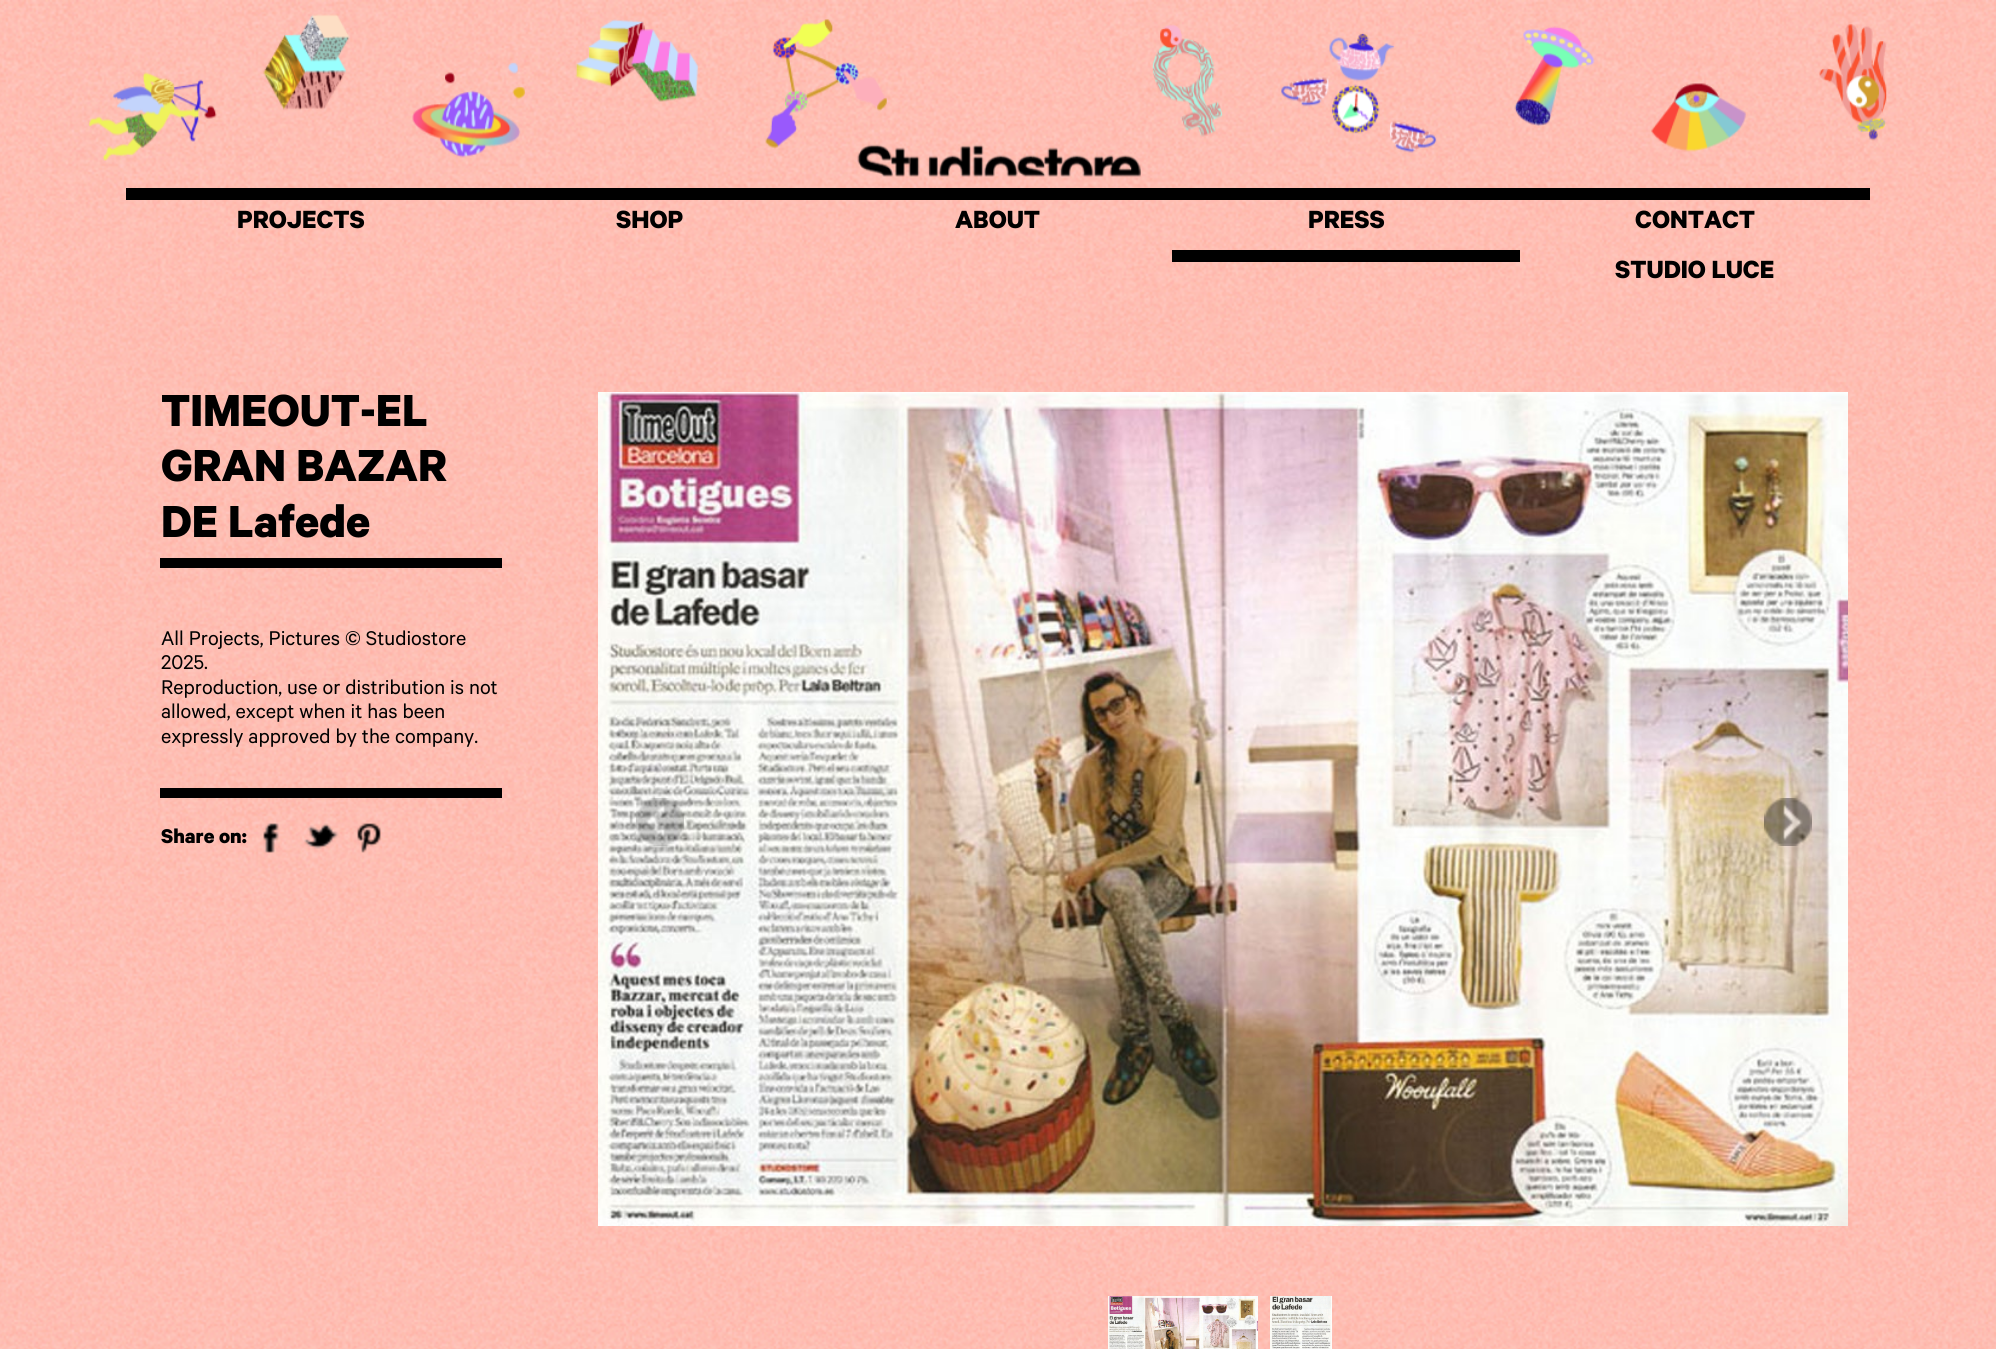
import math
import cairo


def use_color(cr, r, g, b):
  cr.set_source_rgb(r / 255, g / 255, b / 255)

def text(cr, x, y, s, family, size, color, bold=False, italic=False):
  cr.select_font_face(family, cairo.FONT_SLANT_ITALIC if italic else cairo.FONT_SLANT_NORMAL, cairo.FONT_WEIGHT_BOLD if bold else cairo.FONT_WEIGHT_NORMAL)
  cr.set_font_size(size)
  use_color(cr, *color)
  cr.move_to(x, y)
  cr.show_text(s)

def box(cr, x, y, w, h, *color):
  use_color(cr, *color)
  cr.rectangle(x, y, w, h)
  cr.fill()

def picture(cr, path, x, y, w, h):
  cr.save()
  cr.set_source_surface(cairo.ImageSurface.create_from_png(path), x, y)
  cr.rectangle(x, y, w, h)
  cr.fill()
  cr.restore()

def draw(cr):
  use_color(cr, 255, 255, 255)
  cr.paint()
  picture(cr, "img_01.png", 0, 300, 1996, 1049)
  picture(cr, "img_02.png", 0, 0, 1996, 300)
  picture(cr, "img_03.png", 88, 14, 1799, 147)
  picture(cr, "img_04.png", 857, 144, 284, 33)
  box(cr, 126, 188, 1744, 12, 0, 0, 0)
  box(cr, 1172, 250, 348, 12, 0, 0, 0)
  box(cr, 160, 558, 342, 10, 0, 0, 0)
  box(cr, 160, 788, 342, 10, 0, 0, 0)
  picture(cr, "img_05.png", 263, 823, 16, 30)
  picture(cr, "img_06.png", 304, 823, 35, 26)
  picture(cr, "img_07.png", 357, 823, 24, 30)
  picture(cr, "img_08.png", 598, 392, 1250, 834)
  picture(cr, "img_09.png", 636, 798, 48, 48)
  picture(cr, "img_10.png", 1764, 798, 48, 48)
  picture(cr, "img_11.png", 1108, 1296, 150, 53)
  picture(cr, "img_12.png", 1270, 1296, 62, 53)
  text(cr, 237, 228, "PROJECTS", "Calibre", 28, (0, 0, 0), bold=True)
  text(cr, 616, 228, "SHOP", "Calibre", 28, (0, 0, 0), bold=True)
  text(cr, 955, 228, "ABOUT", "Calibre", 28, (0, 0, 0), bold=True)
  text(cr, 1308, 228, "PRESS", "Calibre", 28, (0, 0, 0), bold=True)
  text(cr, 1635, 228, "CONTACT", "Calibre", 28, (0, 0, 0), bold=True)
  text(cr, 1615, 278, "STUDIO LUCE", "Calibre", 28, (0, 0, 0), bold=True)
  text(cr, 161, 426, "TIMEOUT-EL", "Calibre", 50.5, (0, 0, 0), bold=True)
  text(cr, 161, 481, "GRAN BAZAR", "Calibre", 50.5, (0, 0, 0), bold=True)
  text(cr, 161, 537, "DE Lafede", "Calibre", 50.5, (0, 0, 0), bold=True)
  text(cr, 161, 645, "All Projects, Pictures © Studiostore", "Calibre", 22.4, (0, 0, 0))
  text(cr, 161, 669, "2025.", "Calibre", 22.4, (0, 0, 0))
  text(cr, 161, 694, "Reproduction, use or distribution is not", "Calibre", 22.4, (0, 0, 0))
  text(cr, 161, 718, "allowed, except when it has been", "Calibre", 22.4, (0, 0, 0))
  text(cr, 161, 743, "expressly approved by the company.", "Calibre", 22.4, (0, 0, 0))
  text(cr, 161, 843, "Share on:", "Calibre", 22.4, (0, 0, 0), bold=True)


surface = cairo.ImageSurface(cairo.FORMAT_RGB24, 1996, 1349)
cr = cairo.Context(surface)
options = cairo.FontOptions()
options.set_hint_metrics(cairo.HINT_METRICS_OFF)
options.set_hint_style(cairo.HINT_STYLE_NONE)
cr.set_font_options(options)
cr.set_miter_limit(4)
draw(cr)
surface.write_to_png("out.png")
